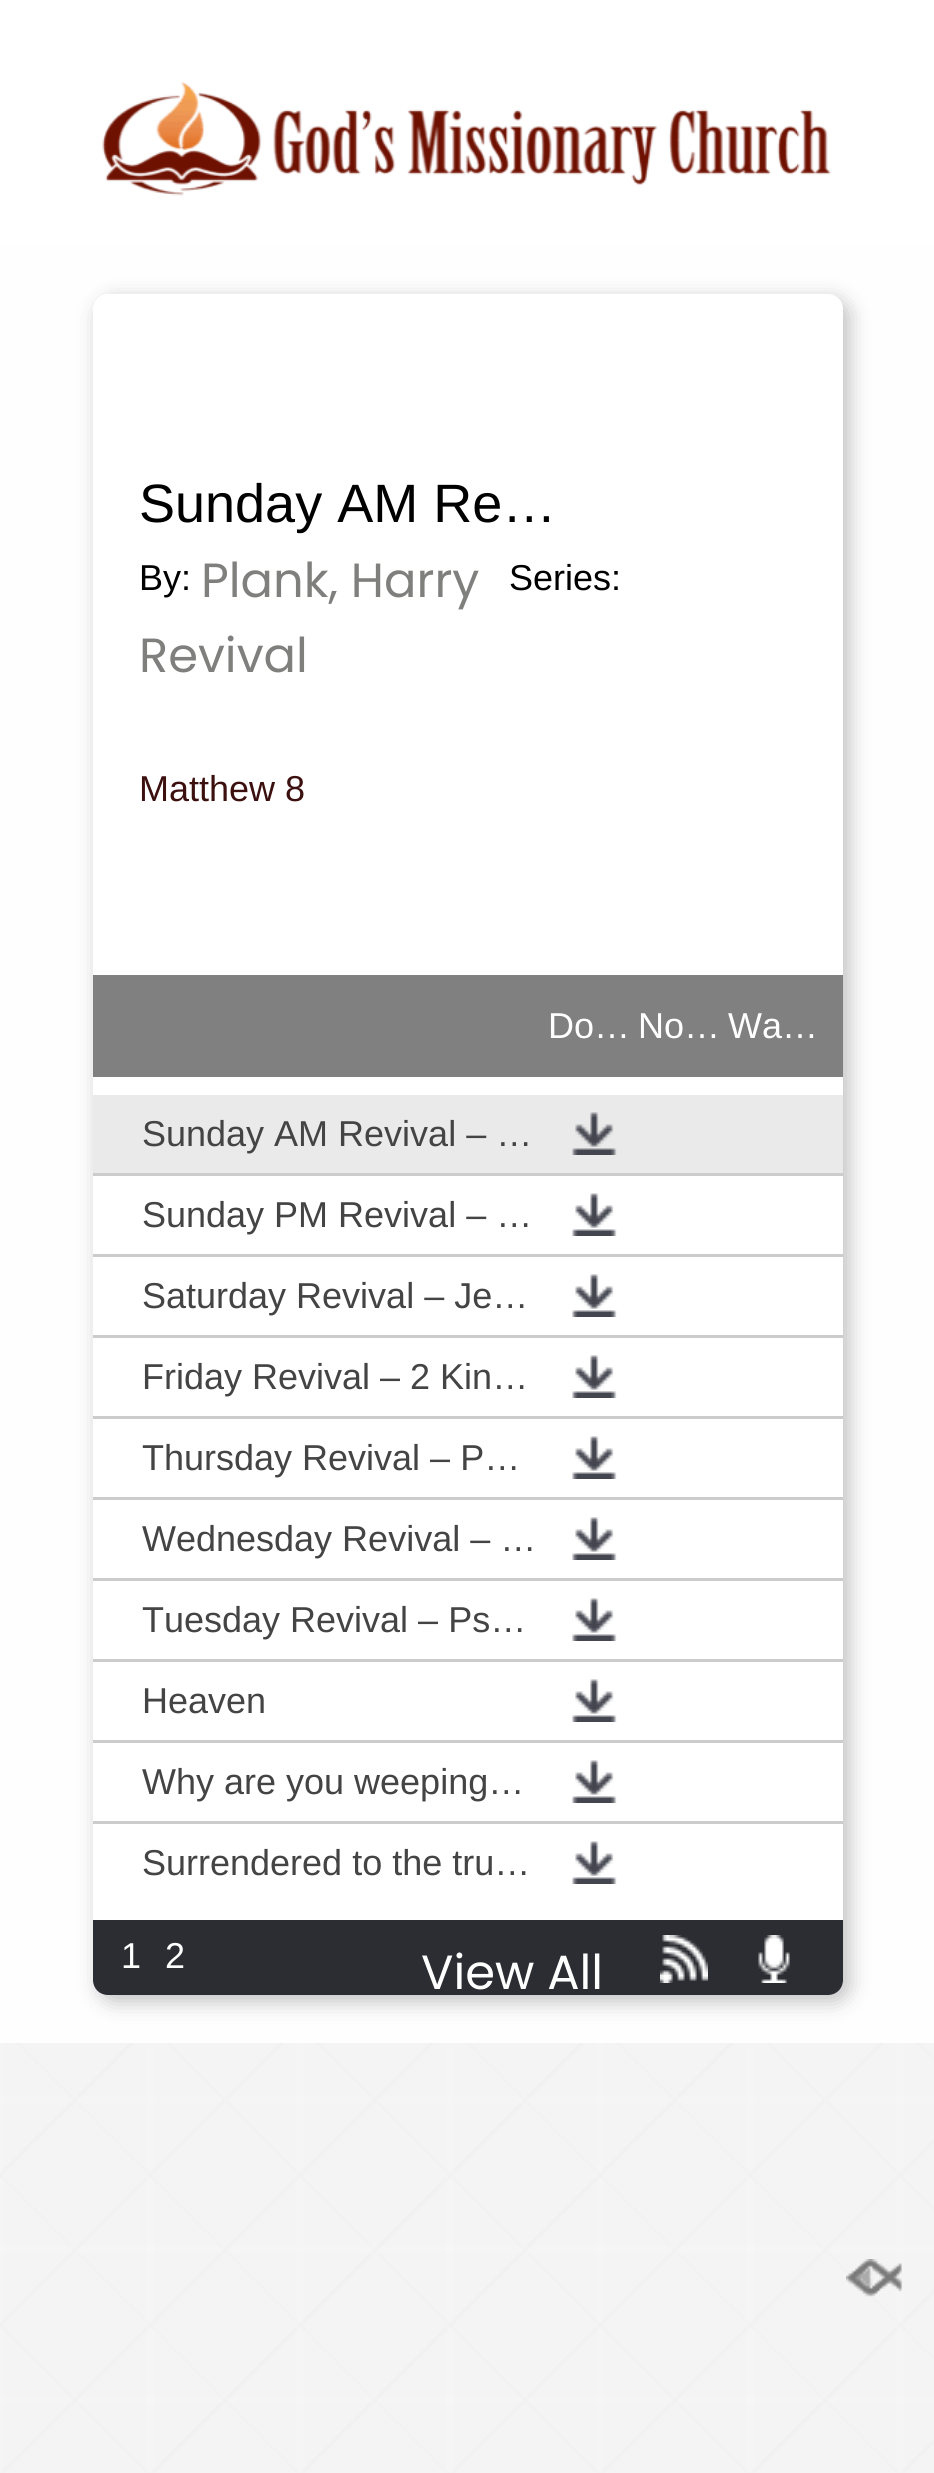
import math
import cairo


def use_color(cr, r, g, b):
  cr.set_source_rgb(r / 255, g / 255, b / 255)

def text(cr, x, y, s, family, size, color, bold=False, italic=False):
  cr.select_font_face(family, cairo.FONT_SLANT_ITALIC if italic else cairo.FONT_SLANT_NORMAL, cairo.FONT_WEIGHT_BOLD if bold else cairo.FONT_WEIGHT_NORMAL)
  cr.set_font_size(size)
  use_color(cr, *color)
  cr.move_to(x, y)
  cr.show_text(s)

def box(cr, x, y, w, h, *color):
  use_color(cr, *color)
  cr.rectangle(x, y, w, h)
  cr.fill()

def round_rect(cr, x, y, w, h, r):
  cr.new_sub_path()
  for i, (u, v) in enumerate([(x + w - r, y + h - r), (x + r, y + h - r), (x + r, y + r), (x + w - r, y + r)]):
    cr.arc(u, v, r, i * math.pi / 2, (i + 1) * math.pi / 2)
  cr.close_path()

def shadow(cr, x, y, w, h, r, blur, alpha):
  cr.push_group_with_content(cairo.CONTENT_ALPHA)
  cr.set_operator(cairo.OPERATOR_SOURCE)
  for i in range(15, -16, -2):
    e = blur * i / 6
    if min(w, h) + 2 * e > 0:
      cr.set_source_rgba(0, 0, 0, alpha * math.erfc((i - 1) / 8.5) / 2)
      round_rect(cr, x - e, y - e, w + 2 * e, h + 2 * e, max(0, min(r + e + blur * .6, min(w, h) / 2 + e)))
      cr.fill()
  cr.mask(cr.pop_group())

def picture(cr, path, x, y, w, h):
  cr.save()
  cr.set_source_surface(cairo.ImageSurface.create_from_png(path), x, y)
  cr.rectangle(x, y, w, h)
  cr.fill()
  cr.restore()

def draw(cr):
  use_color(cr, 255, 255, 255)
  cr.paint()
  picture(cr, "img_01.png", 0, 246, 934, 2227)
  picture(cr, "img_02.png", 102, 82, 729, 114)
  cr.set_source_rgba(1, 1, 1, 0.91)
  cr.rectangle(0, 246, 934, 1797)
  cr.fill()
  use_color(cr, 0, 0, 0)
  shadow(cr, 99, 300, 750, 1701, 15, 10.5, 0.25)
  use_color(cr, 255, 255, 255)
  round_rect(cr, 93, 294, 750, 1701, 15)
  cr.fill()
  box(cr, 93, 975, 750, 102, 128, 128, 128)
  box(cr, 93, 1095, 750, 78, 234, 234, 234)
  picture(cr, "img_03.png", 572, 1112, 45, 43)
  box(cr, 93, 1173, 750, 3, 204, 204, 204)
  picture(cr, "img_04.png", 572, 1193, 45, 43)
  box(cr, 93, 1254, 750, 3, 204, 204, 204)
  picture(cr, "img_04.png", 572, 1274, 45, 43)
  box(cr, 93, 1335, 750, 3, 204, 204, 204)
  picture(cr, "img_04.png", 572, 1355, 45, 43)
  box(cr, 93, 1416, 750, 3, 204, 204, 204)
  picture(cr, "img_04.png", 572, 1436, 45, 43)
  box(cr, 93, 1497, 750, 3, 204, 204, 204)
  picture(cr, "img_04.png", 572, 1517, 45, 43)
  box(cr, 93, 1578, 750, 3, 204, 204, 204)
  picture(cr, "img_04.png", 572, 1598, 45, 43)
  box(cr, 93, 1659, 750, 3, 204, 204, 204)
  picture(cr, "img_04.png", 572, 1679, 45, 43)
  box(cr, 93, 1740, 750, 3, 204, 204, 204)
  picture(cr, "img_04.png", 572, 1760, 45, 43)
  box(cr, 93, 1821, 750, 3, 204, 204, 204)
  picture(cr, "img_04.png", 572, 1841, 45, 43)
  use_color(cr, 44, 45, 51)
  cr.new_path()
  cr.move_to(93, 1920)
  cr.line_to(843, 1920)
  cr.line_to(843, 1980)
  cr.curve_to(843, 1988.5, 836.5, 1995, 828, 1995)
  cr.line_to(108, 1995)
  cr.curve_to(99.5, 1995, 93, 1988.5, 93, 1980)
  cr.close_path()
  cr.fill()
  picture(cr, "img_05.png", 660, 1935, 48, 48)
  picture(cr, "img_06.png", 758, 1935, 32, 48)
  picture(cr, "img_07.png", 846, 2259, 57, 38)
  text(cr, 139, 522, "Sunday AM Re…", "Liberation Sans", 54, (0, 0, 0))
  text(cr, 139, 590, "By:", "Liberation Sans", 36, (0, 0, 0))
  text(cr, 201, 597, "Plank, Harry", "Poppins", 48, (127, 128, 125))
  text(cr, 509, 590, "Series:", "Liberation Sans", 36, (0, 0, 0))
  text(cr, 139, 672, "Revival", "Poppins", 48, (127, 128, 125))
  text(cr, 139, 801, "Matthew 8", "Liberation Sans", 36, (59, 16, 15))
  text(cr, 548, 1038, "Do…", "Liberation Sans", 36, (255, 255, 255))
  text(cr, 638, 1038, "No…", "Liberation Sans", 36, (255, 255, 255))
  text(cr, 728, 1038, "Wa…", "Liberation Sans", 36, (255, 255, 255))
  text(cr, 142, 1146, "Sunday AM Revival – …", "Liberation Sans", 36, (68, 68, 68))
  text(cr, 142, 1227, "Sunday PM Revival – …", "Liberation Sans", 36, (68, 68, 68))
  text(cr, 142, 1308, "Saturday Revival – Je…", "Liberation Sans", 36, (68, 68, 68))
  text(cr, 142, 1389, "Friday Revival – 2 Kin…", "Liberation Sans", 36, (68, 68, 68))
  text(cr, 142, 1470, "Thursday Revival – P…", "Liberation Sans", 36, (68, 68, 68))
  text(cr, 142, 1551, "Wednesday Revival – …", "Liberation Sans", 36, (68, 68, 68))
  text(cr, 142, 1632, "Tuesday Revival – Ps…", "Liberation Sans", 36, (68, 68, 68))
  text(cr, 142, 1713, "Heaven", "Liberation Sans", 36, (68, 68, 68))
  text(cr, 142, 1794, "Why are you weeping…", "Liberation Sans", 36, (68, 68, 68))
  text(cr, 142, 1875, "Surrendered to the tru…", "Liberation Sans", 36, (68, 68, 68))
  text(cr, 121, 1968, "1", "Liberation Sans", 36, (255, 255, 255))
  text(cr, 165, 1968, "2", "Liberation Sans", 36, (255, 255, 255))
  text(cr, 421, 1989, "View All", "Poppins", 48, (255, 255, 255))


surface = cairo.ImageSurface(cairo.FORMAT_RGB24, 934, 2473)
cr = cairo.Context(surface)
options = cairo.FontOptions()
options.set_hint_metrics(cairo.HINT_METRICS_OFF)
options.set_hint_style(cairo.HINT_STYLE_NONE)
cr.set_font_options(options)
cr.set_miter_limit(4)
draw(cr)
surface.write_to_png("out.png")
